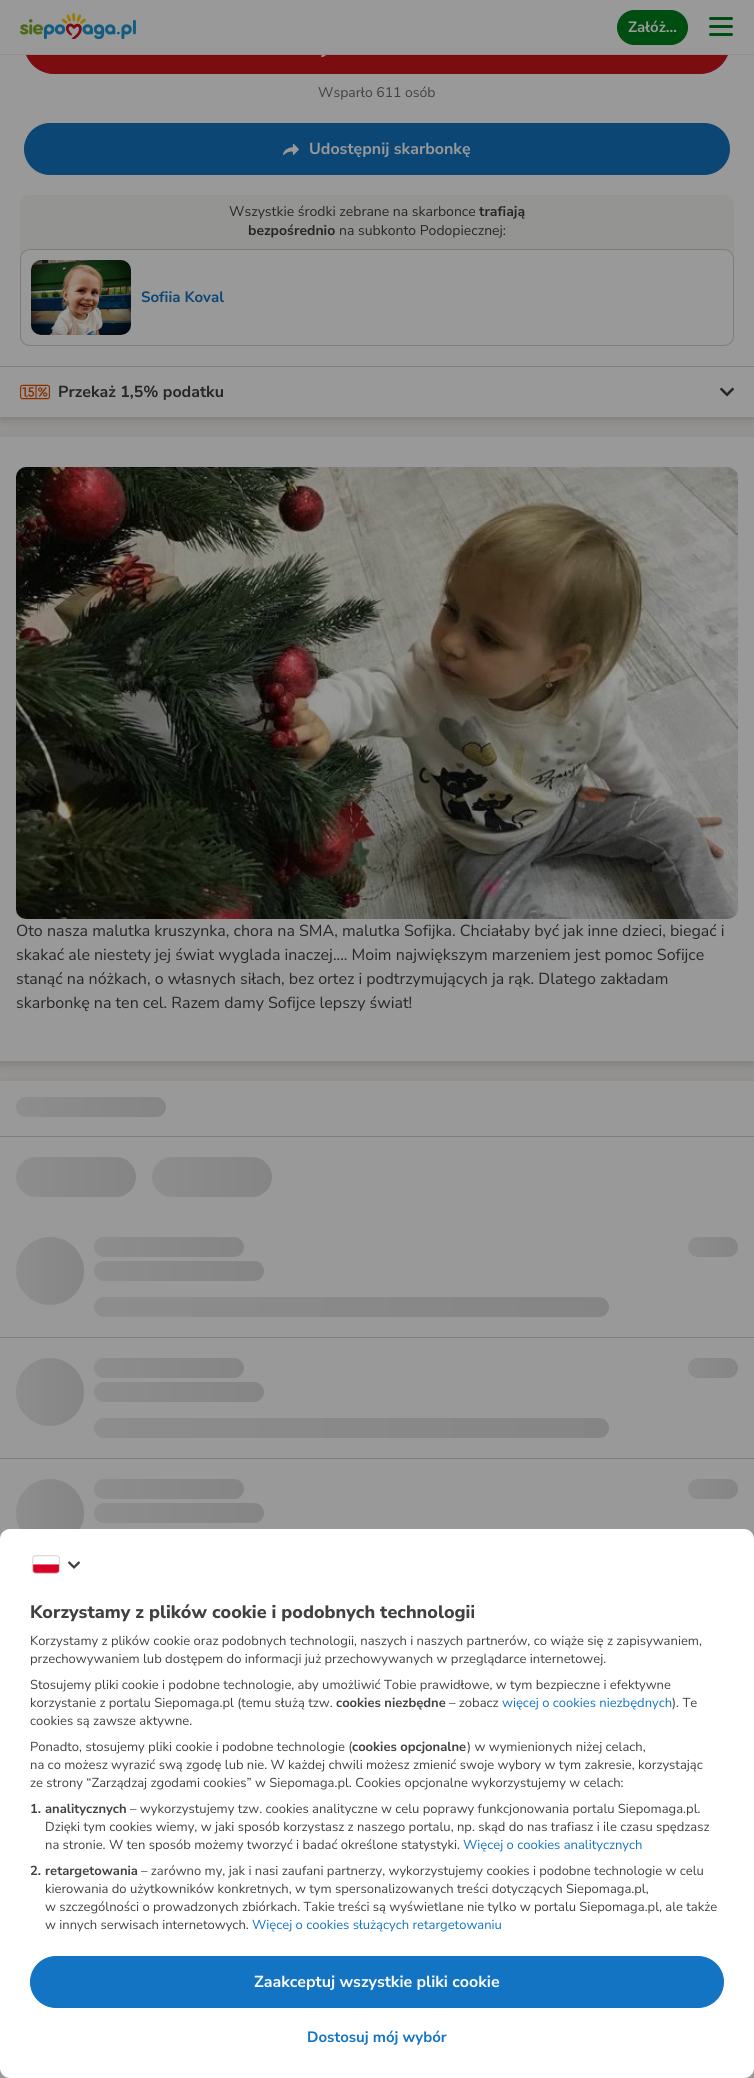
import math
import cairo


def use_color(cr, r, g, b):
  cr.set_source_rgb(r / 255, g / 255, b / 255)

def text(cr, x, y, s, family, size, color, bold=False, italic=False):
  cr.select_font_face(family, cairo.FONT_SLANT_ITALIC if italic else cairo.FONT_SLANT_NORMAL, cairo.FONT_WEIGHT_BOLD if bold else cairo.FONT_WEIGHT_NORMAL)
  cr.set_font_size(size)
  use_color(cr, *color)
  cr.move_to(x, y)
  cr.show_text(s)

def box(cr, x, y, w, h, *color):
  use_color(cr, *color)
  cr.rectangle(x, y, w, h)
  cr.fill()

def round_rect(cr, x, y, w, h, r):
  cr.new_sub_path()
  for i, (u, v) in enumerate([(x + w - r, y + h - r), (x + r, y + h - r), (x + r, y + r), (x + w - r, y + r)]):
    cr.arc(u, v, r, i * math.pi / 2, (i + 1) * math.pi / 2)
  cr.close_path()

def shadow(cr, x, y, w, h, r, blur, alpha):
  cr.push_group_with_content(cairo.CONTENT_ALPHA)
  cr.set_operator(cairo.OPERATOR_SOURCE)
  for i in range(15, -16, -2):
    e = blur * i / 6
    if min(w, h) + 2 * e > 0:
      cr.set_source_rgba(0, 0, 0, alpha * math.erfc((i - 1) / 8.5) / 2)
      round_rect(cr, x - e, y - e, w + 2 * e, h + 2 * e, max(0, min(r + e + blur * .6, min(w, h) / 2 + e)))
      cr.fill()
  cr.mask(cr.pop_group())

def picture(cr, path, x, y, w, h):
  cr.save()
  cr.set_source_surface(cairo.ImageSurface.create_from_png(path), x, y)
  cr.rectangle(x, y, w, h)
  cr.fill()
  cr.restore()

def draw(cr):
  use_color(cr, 151, 150, 149)
  cr.paint()
  use_color(cr, 38, 38, 38)
  shadow(cr, 0, -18, 754, 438, 0, 6, 0.26)
  box(cr, 0, 55, 754, 311, 153, 153, 153)
  use_color(cr, 123, 12, 16)
  round_rect(cr, 24.5, 14.5, 705, 59, 29.5)
  cr.fill_preserve()
  cr.set_line_width(1)
  cr.stroke()
  box(cr, 0, 0, 754, 54, 153, 153, 153)
  box(cr, 0, 54, 754, 1, 141, 141, 141)
  picture(cr, "img_01.png", 20, 13, 116, 26)
  use_color(cr, 0, 77, 17)
  round_rect(cr, 617.5, 10.5, 70, 34, 17)
  cr.fill_preserve()
  cr.stroke()
  picture(cr, "img_02.png", 709, 17, 24, 19)
  picture(cr, "img_03.png", 321, 55, 5, 2)
  use_color(cr, 11, 70, 117)
  round_rect(cr, 24.5, 123.5, 705, 51, 25.5)
  cr.fill_preserve()
  cr.stroke()
  picture(cr, "img_04.png", 283, 144, 16, 11)
  use_color(cr, 148, 148, 146)
  round_rect(cr, 20, 195, 714, 151, 10)
  cr.fill()
  use_color(cr, 153, 153, 153)
  round_rect(cr, 20.5, 249.5, 713, 96, 9.5)
  cr.fill_preserve()
  use_color(cr, 125, 125, 125)
  cr.stroke()
  picture(cr, "img_05.png", 31, 260, 100, 75)
  box(cr, 0, 366, 754, 1, 125, 125, 125)
  box(cr, 0, 367, 754, 50, 153, 153, 153)
  picture(cr, "img_06.png", 20, 384, 30, 16)
  picture(cr, "img_07.png", 720, 387, 14, 10)
  use_color(cr, 38, 38, 38)
  shadow(cr, 0, 1084, 754, 983, 0, 6, 0.26)
  box(cr, 0, 2068, 754, 10, 153, 153, 153)
  use_color(cr, 38, 38, 38)
  shadow(cr, 0, 440, 754, 624, 0, 6, 0.26)
  box(cr, 0, 437, 754, 624, 153, 153, 153)
  picture(cr, "img_08.png", 16, 467, 722, 452)
  box(cr, 0, 1081, 754, 458, 153, 153, 153)
  box(cr, 0, 1136, 754, 1, 125, 125, 125)
  gradient = cairo.LinearGradient(16, 1107, 166, 1107)
  gradient.add_color_stop_rgba(0, 0.553, 0.553, 0.553, 1)
  gradient.add_color_stop_rgba(1, 0.522, 0.522, 0.522, 1)
  cr.set_source(gradient)
  round_rect(cr, 16, 1097, 150, 20, 10)
  cr.fill()
  gradient = cairo.LinearGradient(16, 1177, 136, 1177)
  gradient.add_color_stop_rgba(0, 0.553, 0.553, 0.553, 1)
  gradient.add_color_stop_rgba(1, 0.522, 0.522, 0.522, 1)
  cr.set_source(gradient)
  round_rect(cr, 16, 1157, 120, 40, 20)
  cr.fill()
  gradient = cairo.LinearGradient(152, 1177, 272, 1177)
  gradient.add_color_stop_rgba(0, 0.553, 0.553, 0.553, 1)
  gradient.add_color_stop_rgba(1, 0.522, 0.522, 0.522, 1)
  cr.set_source(gradient)
  round_rect(cr, 152, 1157, 120, 40, 20)
  cr.fill()
  box(cr, 0, 1337, 754, 1, 125, 125, 125)
  gradient = cairo.LinearGradient(16, 1271, 84, 1271)
  gradient.add_color_stop_rgba(0, 0.553, 0.553, 0.553, 1)
  gradient.add_color_stop_rgba(1, 0.522, 0.522, 0.522, 1)
  cr.set_source(gradient)
  cr.arc(50, 1271, 34, 0, 2 * math.pi)
  cr.fill()
  gradient = cairo.LinearGradient(94, 1247, 244, 1247)
  gradient.add_color_stop_rgba(0, 0.553, 0.553, 0.553, 1)
  gradient.add_color_stop_rgba(1, 0.522, 0.522, 0.522, 1)
  cr.set_source(gradient)
  round_rect(cr, 94, 1237, 150, 20, 10)
  cr.fill()
  gradient = cairo.LinearGradient(688, 1247, 738, 1247)
  gradient.add_color_stop_rgba(0, 0.553, 0.553, 0.553, 1)
  gradient.add_color_stop_rgba(1, 0.522, 0.522, 0.522, 1)
  cr.set_source(gradient)
  round_rect(cr, 688, 1237, 50, 20, 10)
  cr.fill()
  gradient = cairo.LinearGradient(94, 1271, 264, 1271)
  gradient.add_color_stop_rgba(0, 0.553, 0.553, 0.553, 1)
  gradient.add_color_stop_rgba(1, 0.522, 0.522, 0.522, 1)
  cr.set_source(gradient)
  round_rect(cr, 94, 1261, 170, 20, 10)
  cr.fill()
  gradient = cairo.LinearGradient(94, 1307, 609, 1307)
  gradient.add_color_stop_rgba(0, 0.553, 0.553, 0.553, 1)
  gradient.add_color_stop_rgba(1, 0.522, 0.522, 0.522, 1)
  cr.set_source(gradient)
  round_rect(cr, 94, 1297, 515, 20, 10)
  cr.fill()
  box(cr, 0, 1458, 754, 1, 125, 125, 125)
  gradient = cairo.LinearGradient(16, 1392, 84, 1392)
  gradient.add_color_stop_rgba(0, 0.553, 0.553, 0.553, 1)
  gradient.add_color_stop_rgba(1, 0.522, 0.522, 0.522, 1)
  cr.set_source(gradient)
  cr.arc(50, 1392, 34, 0, 2 * math.pi)
  cr.fill()
  gradient = cairo.LinearGradient(94, 1368, 244, 1368)
  gradient.add_color_stop_rgba(0, 0.553, 0.553, 0.553, 1)
  gradient.add_color_stop_rgba(1, 0.522, 0.522, 0.522, 1)
  cr.set_source(gradient)
  round_rect(cr, 94, 1358, 150, 20, 10)
  cr.fill()
  gradient = cairo.LinearGradient(688, 1368, 738, 1368)
  gradient.add_color_stop_rgba(0, 0.553, 0.553, 0.553, 1)
  gradient.add_color_stop_rgba(1, 0.522, 0.522, 0.522, 1)
  cr.set_source(gradient)
  round_rect(cr, 688, 1358, 50, 20, 10)
  cr.fill()
  gradient = cairo.LinearGradient(94, 1392, 264, 1392)
  gradient.add_color_stop_rgba(0, 0.553, 0.553, 0.553, 1)
  gradient.add_color_stop_rgba(1, 0.522, 0.522, 0.522, 1)
  cr.set_source(gradient)
  round_rect(cr, 94, 1382, 170, 20, 10)
  cr.fill()
  gradient = cairo.LinearGradient(94, 1428, 609, 1428)
  gradient.add_color_stop_rgba(0, 0.553, 0.553, 0.553, 1)
  gradient.add_color_stop_rgba(1, 0.522, 0.522, 0.522, 1)
  cr.set_source(gradient)
  round_rect(cr, 94, 1418, 515, 20, 10)
  cr.fill()
  gradient = cairo.LinearGradient(16, 1513, 84, 1513)
  gradient.add_color_stop_rgba(0, 0.553, 0.553, 0.553, 1)
  gradient.add_color_stop_rgba(1, 0.522, 0.522, 0.522, 1)
  cr.set_source(gradient)
  cr.arc(50, 1513, 34, 0, 2 * math.pi)
  cr.fill()
  gradient = cairo.LinearGradient(94, 1489, 244, 1489)
  gradient.add_color_stop_rgba(0, 0.553, 0.553, 0.553, 1)
  gradient.add_color_stop_rgba(1, 0.522, 0.522, 0.522, 1)
  cr.set_source(gradient)
  round_rect(cr, 94, 1479, 150, 20, 10)
  cr.fill()
  gradient = cairo.LinearGradient(688, 1489, 738, 1489)
  gradient.add_color_stop_rgba(0, 0.553, 0.553, 0.553, 1)
  gradient.add_color_stop_rgba(1, 0.522, 0.522, 0.522, 1)
  cr.set_source(gradient)
  round_rect(cr, 688, 1479, 50, 20, 10)
  cr.fill()
  gradient = cairo.LinearGradient(94, 1513, 264, 1513)
  gradient.add_color_stop_rgba(0, 0.553, 0.553, 0.553, 1)
  gradient.add_color_stop_rgba(1, 0.522, 0.522, 0.522, 1)
  cr.set_source(gradient)
  round_rect(cr, 94, 1503, 170, 20, 10)
  cr.fill()
  use_color(cr, 255, 255, 255)
  round_rect(cr, 0, 1529, 754, 549, 10)
  cr.fill()
  picture(cr, "img_09.png", 32, 1555, 28, 19)
  picture(cr, "img_10.png", 68, 1561, 12, 8)
  use_color(cr, 18, 116, 195)
  round_rect(cr, 30.5, 1956.5, 693, 51, 25.5)
  cr.fill_preserve()
  cr.stroke()
  text(cr, 628, 32, "Załóż…", "Nunito Sans", 15, (153, 153, 153), bold=True)
  text(cr, 318, 97, "Wsparło 611 osób", "Nunito Sans", 14, (65, 65, 65))
  text(cr, 309, 154, "Udostępnij skarbonkę", "Nunito Sans", 16, (153, 153, 153), bold=True)
  text(cr, 229, 216, "Wszystkie środki zebrane na skarbonce", "Nunito Sans", 14, (38, 38, 38))
  text(cr, 479, 216, "trafiają", "Nunito Sans", 14, (38, 38, 38), bold=True)
  text(cr, 248, 235, "bezpośrednio", "Nunito Sans", 14, (38, 38, 38), bold=True)
  text(cr, 339, 235, "na subkonto Podopiecznej:", "Nunito Sans", 14, (38, 38, 38))
  text(cr, 141, 302, "Sofiia Koval", "Nunito Sans", 15, (11, 70, 117), bold=True)
  text(cr, 58, 397, "Przekaż 1,5% podatku", "Nunito Sans", 16, (38, 38, 38), bold=True)
  text(cr, 16, 936, "Oto nasza malutka kruszynka, chora na SMA, malutka Sofijka. Chciałaby być jak inne dzieci, biegać i", "Nunito Sans", 16, (38, 38, 38))
  text(cr, 16, 960, "skakać ale niestety jej świat wyglada inaczej.... Moim największym marzeniem jest pomoc Sofijce", "Nunito Sans", 16, (38, 38, 38))
  text(cr, 16, 984, "stanąć na nóżkach, o własnych siłach, bez ortez i podtrzymujących ja rąk. Dlatego zakładam", "Nunito Sans", 16, (38, 38, 38))
  text(cr, 16, 1008, "skarbonkę na ten cel. Razem damy Sofijce lepszy świat!", "Nunito Sans", 16, (38, 38, 38))
  text(cr, 30, 1618, "Korzystamy z plików cookie i podobnych technologii", "Nunito Sans ExtraBold", 18, (65, 65, 65))
  text(cr, 30, 1645, "Korzystamy z plików cookie oraz podobnych technologii, naszych i naszych partnerów, co wiąże się z zapisywaniem,", "Nunito Sans", 13, (65, 65, 65))
  text(cr, 30, 1663, "przechowywaniem lub dostępem do informacji już przechowywanych w przeglądarce internetowej.", "Nunito Sans", 13, (65, 65, 65))
  text(cr, 30, 1689, "Stosujemy pliki cookie i podobne technologie, aby umożliwić Tobie prawidłowe, w tym bezpieczne i efektywne", "Nunito Sans", 13, (65, 65, 65))
  text(cr, 30, 1707, "korzystanie z portalu Siepomaga.pl (temu służą tzw.", "Nunito Sans", 13, (65, 65, 65))
  text(cr, 336, 1707, "cookies niezbędne", "Nunito Sans", 13, (65, 65, 65), bold=True)
  text(cr, 449, 1707, "– zobacz", "Nunito Sans", 13, (65, 65, 65))
  text(cr, 502, 1707, "więcej o cookies niezbędnych", "Nunito Sans", 13, (18, 116, 195))
  text(cr, 672, 1707, "). Te", "Nunito Sans", 13, (65, 65, 65))
  text(cr, 30, 1725, "cookies są zawsze aktywne.", "Nunito Sans", 13, (65, 65, 65))
  text(cr, 30, 1751, "Ponadto, stosujemy pliki cookie i podobne technologie (", "Nunito Sans", 13, (65, 65, 65))
  text(cr, 352, 1751, "cookies opcjonalne", "Nunito Sans", 13, (65, 65, 65), bold=True)
  text(cr, 467, 1751, ") w wymienionych niżej celach,", "Nunito Sans", 13, (65, 65, 65))
  text(cr, 30, 1769, "na co możesz wyrazić swą zgodę lub nie. W każdej chwili możesz zmienić swoje wybory w tym zakresie, korzystając", "Nunito Sans", 13, (65, 65, 65))
  text(cr, 30, 1787, "ze strony “Zarządzaj zgodami cookies” w Siepomaga.pl. Cookies opcjonalne wykorzystujemy w celach:", "Nunito Sans", 13, (65, 65, 65))
  text(cr, 30, 1813, "1.", "Nunito Sans", 13, (65, 65, 65), bold=True)
  text(cr, 45, 1813, "analitycznych", "Nunito Sans", 13, (65, 65, 65), bold=True)
  text(cr, 130, 1813, "– wykorzystujemy tzw. cookies analityczne w celu poprawy funkcjonowania portalu Siepomaga.pl.", "Nunito Sans", 13, (65, 65, 65))
  text(cr, 45, 1831, "Dzięki tym cookies wiemy, w jaki sposób korzystasz z naszego portalu, np. skąd do nas trafiasz i ile czasu spędzasz", "Nunito Sans", 13, (65, 65, 65))
  text(cr, 45, 1849, "na stronie. W ten sposób możemy tworzyć i badać określone statystyki.", "Nunito Sans", 13, (65, 65, 65))
  text(cr, 463, 1849, "Więcej o cookies analitycznych", "Nunito Sans", 13, (18, 116, 195))
  text(cr, 30, 1875, "2.", "Nunito Sans", 13, (65, 65, 65), bold=True)
  text(cr, 45, 1875, "retargetowania", "Nunito Sans", 13, (65, 65, 65), bold=True)
  text(cr, 141, 1875, "– zarówno my, jak i nasi zaufani partnerzy, wykorzystujemy cookies i podobne technologie w celu", "Nunito Sans", 13, (65, 65, 65))
  text(cr, 45, 1893, "kierowania do użytkowników konkretnych, w tym spersonalizowanych treści dotyczących Siepomaga.pl,", "Nunito Sans", 13, (65, 65, 65))
  text(cr, 45, 1911, "w szczególności o prowadzonych zbiórkach. Takie treści są wyświetlane nie tylko w portalu Siepomaga.pl, ale także", "Nunito Sans", 13, (65, 65, 65))
  text(cr, 45, 1929, "w innych serwisach internetowych.", "Nunito Sans", 13, (65, 65, 65))
  text(cr, 252, 1929, "Więcej o cookies służących retargetowaniu", "Nunito Sans", 13, (18, 116, 195))
  text(cr, 254, 1987, "Zaakceptuj wszystkie pliki cookie", "Nunito Sans", 16, (255, 255, 255), bold=True)
  text(cr, 307, 2042, "Dostosuj mój wybór", "Nunito Sans", 15, (18, 116, 195), bold=True)


surface = cairo.ImageSurface(cairo.FORMAT_RGB24, 754, 2078)
cr = cairo.Context(surface)
options = cairo.FontOptions()
options.set_hint_metrics(cairo.HINT_METRICS_OFF)
options.set_hint_style(cairo.HINT_STYLE_NONE)
cr.set_font_options(options)
cr.set_miter_limit(4)
draw(cr)
surface.write_to_png("out.png")
